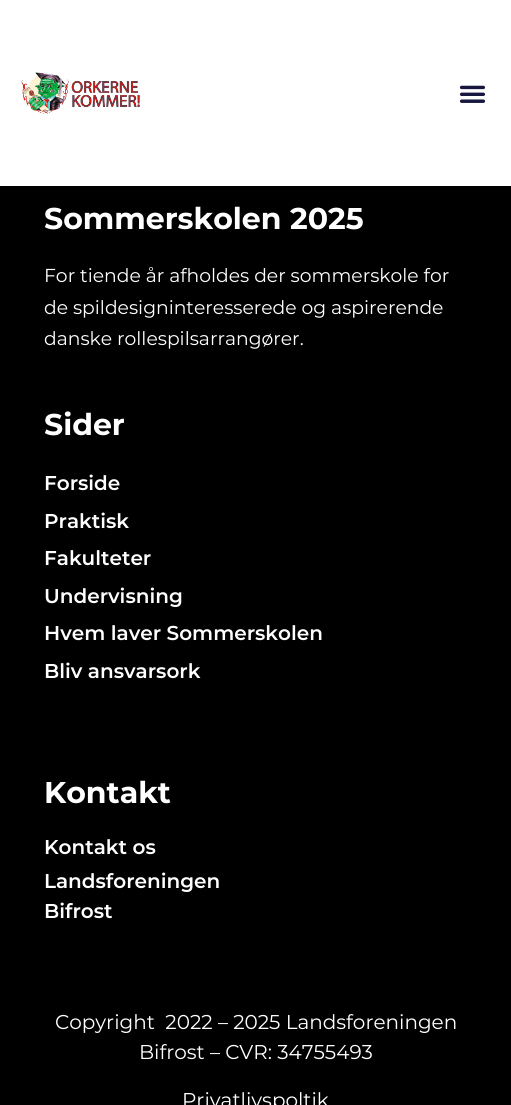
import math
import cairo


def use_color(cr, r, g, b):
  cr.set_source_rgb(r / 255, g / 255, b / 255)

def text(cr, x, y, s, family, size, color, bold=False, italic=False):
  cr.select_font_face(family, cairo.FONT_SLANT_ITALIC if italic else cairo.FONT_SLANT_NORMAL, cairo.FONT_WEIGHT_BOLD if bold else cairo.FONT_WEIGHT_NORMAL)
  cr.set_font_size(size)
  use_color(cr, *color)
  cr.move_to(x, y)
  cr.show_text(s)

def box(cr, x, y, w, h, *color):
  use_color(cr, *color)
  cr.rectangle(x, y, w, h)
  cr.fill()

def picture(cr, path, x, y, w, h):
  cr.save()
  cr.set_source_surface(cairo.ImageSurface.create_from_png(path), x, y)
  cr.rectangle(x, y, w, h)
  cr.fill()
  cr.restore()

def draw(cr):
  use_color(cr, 0, 0, 0)
  cr.paint()
  box(cr, 0, 0, 511, 186, 255, 255, 255)
  picture(cr, "img_01.png", 21, 72, 119, 42)
  picture(cr, "img_02.png", 459, 85, 27, 18)
  text(cr, 44, 229, "Sommerskolen 2025", "Montserrat", 30, (255, 255, 255), bold=True)
  text(cr, 44, 282, "For tiende år afholdes der sommerskole for", "Montserrat", 18.75, (255, 255, 255))
  text(cr, 44, 314, "de spildesigninteresserede og aspirerende", "Montserrat", 18.75, (255, 255, 255))
  text(cr, 44, 345, "danske rollespilsarrangører.", "Montserrat", 18.75, (255, 255, 255))
  text(cr, 44, 435, "Sider", "Montserrat", 30, (255, 255, 255), bold=True)
  text(cr, 44, 490, "Forside", "Montserrat SemiBold", 20, (255, 255, 255))
  text(cr, 44, 528, "Praktisk", "Montserrat SemiBold", 20, (255, 255, 255))
  text(cr, 44, 565, "Fakulteter", "Montserrat SemiBold", 20, (255, 255, 255))
  text(cr, 44, 603, "Undervisning", "Montserrat SemiBold", 20, (255, 255, 255))
  text(cr, 44, 640, "Hvem laver Sommerskolen", "Montserrat SemiBold", 20, (255, 255, 255))
  text(cr, 44, 678, "Bliv ansvarsork", "Montserrat SemiBold", 20, (255, 255, 255))
  text(cr, 44, 803, "Kontakt", "Montserrat", 30, (255, 255, 255), bold=True)
  text(cr, 44, 854, "Kontakt os", "Montserrat SemiBold", 20, (255, 255, 255))
  text(cr, 44, 888, "Landsforeningen", "Montserrat SemiBold", 20, (255, 255, 255))
  text(cr, 44, 918, "Bifrost", "Montserrat SemiBold", 20, (255, 255, 255))
  text(cr, 55, 1029, "Copyright  2022 – 2025 Landsforeningen", "Montserrat", 20, (255, 255, 255))
  text(cr, 139, 1059, "Bifrost – CVR: 34755493", "Montserrat", 20, (255, 255, 255))
  text(cr, 182, 1107, "Privatlivspoltik", "Montserrat", 20, (255, 255, 255))


surface = cairo.ImageSurface(cairo.FORMAT_RGB24, 511, 1105)
cr = cairo.Context(surface)
options = cairo.FontOptions()
options.set_hint_metrics(cairo.HINT_METRICS_OFF)
options.set_hint_style(cairo.HINT_STYLE_NONE)
cr.set_font_options(options)
cr.set_miter_limit(4)
draw(cr)
surface.write_to_png("out.png")
